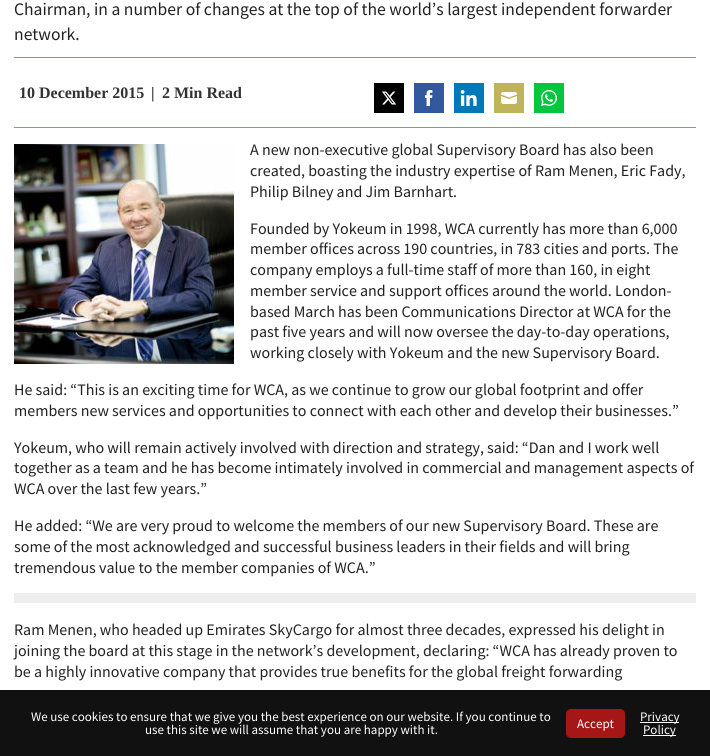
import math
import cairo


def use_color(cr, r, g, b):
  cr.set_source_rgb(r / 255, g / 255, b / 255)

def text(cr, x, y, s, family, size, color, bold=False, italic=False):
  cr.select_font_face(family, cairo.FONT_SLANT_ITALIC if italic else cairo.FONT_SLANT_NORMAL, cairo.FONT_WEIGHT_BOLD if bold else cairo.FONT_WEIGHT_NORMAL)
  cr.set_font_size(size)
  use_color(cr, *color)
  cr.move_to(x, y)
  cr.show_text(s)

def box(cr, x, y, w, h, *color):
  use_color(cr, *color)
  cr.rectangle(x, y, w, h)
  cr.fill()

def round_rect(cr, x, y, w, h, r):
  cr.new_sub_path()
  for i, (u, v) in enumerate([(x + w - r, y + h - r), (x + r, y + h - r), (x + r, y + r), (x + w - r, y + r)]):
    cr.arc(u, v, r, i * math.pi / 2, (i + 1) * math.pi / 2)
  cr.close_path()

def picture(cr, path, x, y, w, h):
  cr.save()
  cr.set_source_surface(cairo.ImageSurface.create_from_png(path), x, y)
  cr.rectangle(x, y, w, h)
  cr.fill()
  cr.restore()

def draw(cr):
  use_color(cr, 255, 255, 255)
  cr.paint()
  box(cr, 14, 57, 682, 1, 237, 108, 113)
  box(cr, 14, 127, 682, 1, 237, 108, 113)
  box(cr, 374, 83, 30, 30, 0, 0, 0)
  picture(cr, "img_01.png", 382, 91, 15, 14)
  box(cr, 414, 83, 30, 30, 50, 89, 157)
  picture(cr, "img_02.png", 425, 90, 8, 16)
  box(cr, 454, 83, 30, 30, 0, 120, 186)
  picture(cr, "img_03.png", 460, 90, 17, 16)
  box(cr, 494, 83, 30, 30, 191, 180, 90)
  picture(cr, "img_04.png", 501, 92, 16, 12)
  box(cr, 534, 83, 30, 30, 0, 199, 61)
  picture(cr, "img_05.png", 541, 90, 16, 16)
  picture(cr, "img_06.png", 14, 144, 220, 220)
  box(cr, 14, 593, 682, 10, 238, 238, 238)
  box(cr, 0, 690, 710, 66, 17, 17, 17)
  use_color(cr, 164, 23, 22)
  round_rect(cr, 566.5, 709.5, 58, 28, 4.5)
  cr.fill_preserve()
  cr.set_line_width(1)
  cr.stroke()
  box(cr, 640, 722, 39, 1, 255, 255, 255)
  box(cr, 643, 735, 33, 1, 255, 255, 255)
  text(cr, 14, 15, "Chairman, in a number of changes at the top of the world’s largest independent forwarder", "Source Sans Pro", 17.6, (34, 34, 34))
  text(cr, 14, 40, "network.", "Source Sans Pro", 17.6, (34, 34, 34))
  text(cr, 19, 98, "10 December 2015", "Liberation Serif", 16, (51, 51, 51), bold=True)
  text(cr, 151, 98, "|", "Liberation Serif", 16, (51, 51, 51), bold=True)
  text(cr, 162, 98, "2 Min Read", "Liberation Serif", 16, (51, 51, 51), bold=True)
  text(cr, 250, 155, "A new non-executive global Supervisory Board has also been", "Source Sans Pro", 16, (34, 34, 34))
  text(cr, 250, 176, "created, boasting the industry expertise of Ram Menen, Eric Fady,", "Source Sans Pro", 16, (34, 34, 34))
  text(cr, 250, 197, "Philip Bilney and Jim Barnhart.", "Source Sans Pro", 16, (34, 34, 34))
  text(cr, 250, 234, "Founded by Yokeum in 1998, WCA currently has more than 6,000", "Source Sans Pro", 16, (34, 34, 34))
  text(cr, 250, 254, "member offices across 190 countries, in 783 cities and ports. The", "Source Sans Pro", 16, (34, 34, 34))
  text(cr, 250, 275, "company employs a full-time staff of more than 160, in eight", "Source Sans Pro", 16, (34, 34, 34))
  text(cr, 250, 296, "member service and support offices around the world. London-", "Source Sans Pro", 16, (34, 34, 34))
  text(cr, 250, 317, "based March has been Communications Director at WCA for the", "Source Sans Pro", 16, (34, 34, 34))
  text(cr, 250, 337, "past five years and will now oversee the day-to-day operations,", "Source Sans Pro", 16, (34, 34, 34))
  text(cr, 250, 358, "working closely with Yokeum and the new Supervisory Board.", "Source Sans Pro", 16, (34, 34, 34))
  text(cr, 14, 395, "He said: “This is an exciting time for WCA, as we continue to grow our global footprint and offer", "Source Sans Pro", 16, (34, 34, 34))
  text(cr, 14, 416, "members new services and opportunities to connect with each other and develop their businesses.”", "Source Sans Pro", 16, (34, 34, 34))
  text(cr, 14, 453, "Yokeum, who will remain actively involved with direction and strategy, said: “Dan and I work well", "Source Sans Pro", 16, (34, 34, 34))
  text(cr, 14, 473, "together as a team and he has become intimately involved in commercial and management aspects of", "Source Sans Pro", 16, (34, 34, 34))
  text(cr, 14, 494, "WCA over the last few years.”", "Source Sans Pro", 16, (34, 34, 34))
  text(cr, 14, 531, "He added: “We are very proud to welcome the members of our new Supervisory Board. These are", "Source Sans Pro", 16, (34, 34, 34))
  text(cr, 14, 552, "some of the most acknowledged and successful business leaders in their fields and will bring", "Source Sans Pro", 16, (34, 34, 34))
  text(cr, 14, 573, "tremendous value to the member companies of WCA.”", "Source Sans Pro", 16, (34, 34, 34))
  text(cr, 14, 635, "Ram Menen, who headed up Emirates SkyCargo for almost three decades, expressed his delight in", "Source Sans Pro", 16, (34, 34, 34))
  text(cr, 14, 656, "joining the board at this stage in the network’s development, declaring: “WCA has already proven to", "Source Sans Pro", 16, (34, 34, 34))
  text(cr, 14, 677, "be a highly innovative company that provides true benefits for the global freight forwarding", "Source Sans Pro", 16, (34, 34, 34))
  text(cr, 31, 721, "We use cookies to ensure that we give you the best experience on our website. If you continue to", "Source Sans Pro", 13, (255, 255, 255))
  text(cr, 145, 734, "use this site we will assume that you are happy with it.", "Source Sans Pro", 13, (255, 255, 255))
  text(cr, 577, 728, "Accept", "Source Sans Pro", 13, (255, 255, 255))
  text(cr, 640, 721, "Privacy", "Source Sans Pro", 13, (255, 255, 255))
  text(cr, 643, 734, "Policy", "Source Sans Pro", 13, (255, 255, 255))


surface = cairo.ImageSurface(cairo.FORMAT_RGB24, 710, 756)
cr = cairo.Context(surface)
options = cairo.FontOptions()
options.set_hint_metrics(cairo.HINT_METRICS_OFF)
options.set_hint_style(cairo.HINT_STYLE_NONE)
cr.set_font_options(options)
cr.set_miter_limit(4)
draw(cr)
surface.write_to_png("out.png")
